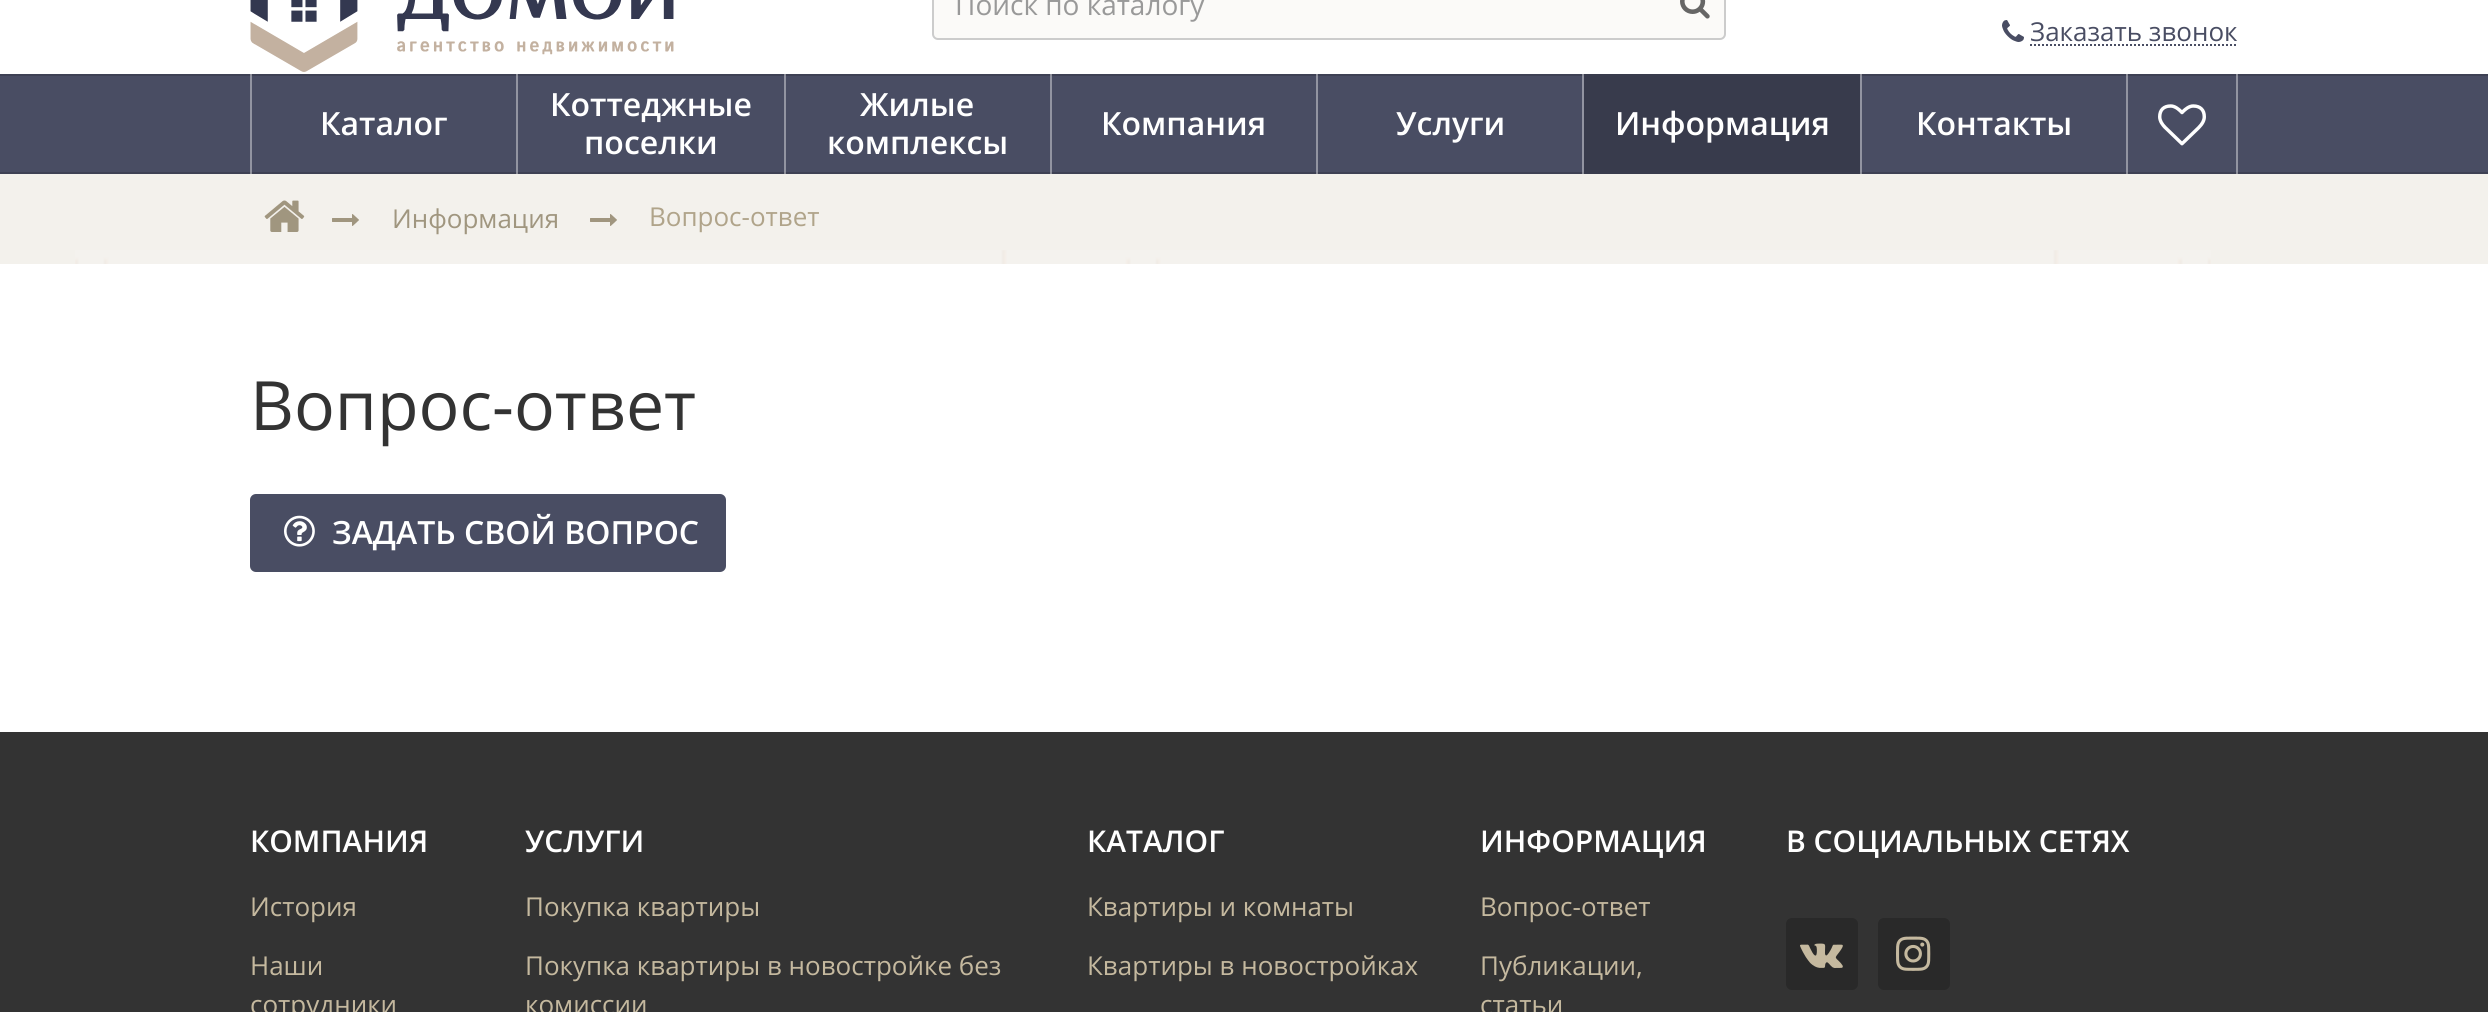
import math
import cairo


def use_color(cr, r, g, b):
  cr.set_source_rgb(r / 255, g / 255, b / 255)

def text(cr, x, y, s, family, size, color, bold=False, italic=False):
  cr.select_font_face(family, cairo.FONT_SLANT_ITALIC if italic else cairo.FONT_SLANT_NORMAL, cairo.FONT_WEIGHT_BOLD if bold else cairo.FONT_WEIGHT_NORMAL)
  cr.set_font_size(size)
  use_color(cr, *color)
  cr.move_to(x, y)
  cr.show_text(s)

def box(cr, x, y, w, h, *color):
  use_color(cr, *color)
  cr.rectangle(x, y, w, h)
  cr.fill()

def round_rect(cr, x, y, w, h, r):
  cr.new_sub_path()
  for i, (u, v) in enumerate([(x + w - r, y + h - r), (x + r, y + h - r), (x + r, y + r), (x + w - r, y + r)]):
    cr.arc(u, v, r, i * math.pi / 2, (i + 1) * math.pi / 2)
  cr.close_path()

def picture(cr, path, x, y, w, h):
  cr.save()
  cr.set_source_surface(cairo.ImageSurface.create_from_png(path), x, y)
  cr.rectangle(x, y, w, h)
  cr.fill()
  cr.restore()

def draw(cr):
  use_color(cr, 255, 255, 255)
  cr.paint()
  picture(cr, "img_01.png", 250, 0, 424, 72)
  use_color(cr, 251, 250, 248)
  round_rect(cr, 933, -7, 792, 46, 5)
  cr.fill_preserve()
  use_color(cr, 204, 204, 204)
  cr.stroke()
  picture(cr, "img_02.png", 1680, 0, 30, 19)
  picture(cr, "img_03.png", 2002, 20, 22, 22)
  cr.new_path()
  cr.move_to(2030, 45)
  cr.line_to(2238, 45)
  use_color(cr, 73, 77, 99)
  cr.set_dash([2, 2])
  cr.stroke()
  box(cr, 0, 76, 2488, 96, 73, 77, 99)
  box(cr, 2126, 74, 2, 100, 146, 148, 161)
  box(cr, 1860, 74, 2, 100, 146, 148, 161)
  box(cr, 1582, 74, 2, 100, 146, 148, 161)
  box(cr, 1316, 74, 2, 100, 146, 148, 161)
  box(cr, 1050, 74, 2, 100, 146, 148, 161)
  box(cr, 784, 74, 2, 100, 146, 148, 161)
  box(cr, 516, 74, 2, 100, 146, 148, 161)
  box(cr, 250, 74, 2, 100, 146, 148, 161)
  box(cr, 2236, 74, 2, 100, 146, 148, 161)
  box(cr, 0, 74, 2488, 2, 62, 65, 84)
  box(cr, 0, 172, 2488, 2, 62, 65, 84)
  box(cr, 1584, 74, 276, 100, 56, 59, 76)
  picture(cr, "img_04.png", 2158, 104, 48, 42)
  box(cr, 2126, 74, 2, 2, 139, 141, 152)
  box(cr, 1860, 74, 2, 2, 139, 141, 152)
  box(cr, 1582, 74, 2, 2, 139, 141, 152)
  box(cr, 1316, 74, 2, 2, 139, 141, 152)
  box(cr, 1050, 74, 2, 2, 139, 141, 152)
  box(cr, 784, 74, 2, 2, 139, 141, 152)
  box(cr, 516, 74, 2, 2, 139, 141, 152)
  box(cr, 250, 74, 2, 2, 139, 141, 152)
  box(cr, 2236, 74, 2, 2, 139, 141, 152)
  box(cr, 2126, 172, 2, 2, 139, 141, 152)
  box(cr, 1860, 172, 2, 2, 139, 141, 152)
  box(cr, 1582, 172, 2, 2, 139, 141, 152)
  box(cr, 1316, 172, 2, 2, 139, 141, 152)
  box(cr, 1050, 172, 2, 2, 139, 141, 152)
  box(cr, 784, 172, 2, 2, 139, 141, 152)
  box(cr, 516, 172, 2, 2, 139, 141, 152)
  box(cr, 250, 172, 2, 2, 139, 141, 152)
  box(cr, 2236, 172, 2, 2, 139, 141, 152)
  box(cr, 0, 174, 2488, 90, 243, 241, 236)
  picture(cr, "img_05.png", 264, 200, 41, 32)
  picture(cr, "img_06.png", 332, 214, 27, 12)
  picture(cr, "img_06.png", 590, 214, 27, 12)
  picture(cr, "img_07.png", 75, 250, 2136, 14)
  use_color(cr, 73, 77, 99)
  round_rect(cr, 250, 494, 476, 78, 6)
  cr.fill()
  picture(cr, "img_08.png", 284, 515, 31, 32)
  box(cr, 0, 732, 2488, 280, 51, 51, 51)
  use_color(cr, 41, 41, 41)
  round_rect(cr, 1786, 918, 72, 72, 6)
  cr.fill()
  picture(cr, "img_09.png", 1800, 943, 43, 25)
  round_rect(cr, 1878, 918, 72, 72, 6)
  cr.fill()
  picture(cr, "img_10.png", 1896, 936, 35, 35)
  text(cr, 955, 15, "Поиск по каталогу", "Open Sans", 28, (153, 153, 153))
  text(cr, 2030, 41, "Заказать звонок", "Open Sans", 26, (73, 77, 99))
  text(cr, 320, 135, "Каталог", "Open Sans SemiBold", 32, (255, 255, 255))
  text(cr, 550, 116, "Коттеджные", "Open Sans SemiBold", 32, (255, 255, 255))
  text(cr, 584, 154, "поселки", "Open Sans SemiBold", 32, (255, 255, 255))
  text(cr, 860, 116, "Жилые", "Open Sans SemiBold", 32, (255, 255, 255))
  text(cr, 827, 154, "комплексы", "Open Sans SemiBold", 32, (255, 255, 255))
  text(cr, 1101, 135, "Компания", "Open Sans SemiBold", 32, (255, 255, 255))
  text(cr, 1396, 135, "Услуги", "Open Sans SemiBold", 32, (255, 255, 255))
  text(cr, 1615, 135, "Информация", "Open Sans SemiBold", 32, (255, 255, 255))
  text(cr, 1916, 135, "Контакты", "Open Sans SemiBold", 32, (255, 255, 255))
  text(cr, 392, 228, "Информация", "Open Sans", 26, (160, 150, 127))
  text(cr, 649, 226, "Вопрос-ответ", "Open Sans", 26, (176, 164, 138))
  text(cr, 250, 430, "Вопрос-ответ", "Open Sans", 68, (51, 51, 51))
  text(cr, 332, 544, "ЗАДАТЬ СВОЙ ВОПРОС", "Open Sans SemiBold", 32, (255, 255, 255))
  text(cr, 250, 852, "КОМПАНИЯ", "Open Sans SemiBold", 30, (255, 255, 255))
  text(cr, 250, 916, "История", "Open Sans", 26, (197, 185, 159))
  text(cr, 250, 975, "Наши", "Open Sans", 26, (197, 185, 159))
  text(cr, 250, 1014, "сотрудники", "Open Sans", 26, (197, 185, 159))
  text(cr, 525, 852, "УСЛУГИ", "Open Sans SemiBold", 30, (255, 255, 255))
  text(cr, 525, 916, "Покупка квартиры", "Open Sans", 26, (197, 185, 159))
  text(cr, 525, 975, "Покупка квартиры в новостройке без", "Open Sans", 26, (197, 185, 159))
  text(cr, 525, 1014, "комиссии", "Open Sans", 26, (197, 185, 159))
  text(cr, 1087, 852, "КАТАЛОГ", "Open Sans SemiBold", 30, (255, 255, 255))
  text(cr, 1087, 916, "Квартиры и комнаты", "Open Sans", 26, (197, 185, 159))
  text(cr, 1087, 975, "Квартиры в новостройках", "Open Sans", 26, (197, 185, 159))
  text(cr, 1480, 852, "ИНФОРМАЦИЯ", "Open Sans SemiBold", 30, (255, 255, 255))
  text(cr, 1480, 916, "Вопрос-ответ", "Open Sans", 26, (197, 185, 159))
  text(cr, 1480, 975, "Публикации,", "Open Sans", 26, (197, 185, 159))
  text(cr, 1480, 1014, "статьи", "Open Sans", 26, (197, 185, 159))
  text(cr, 1786, 852, "В СОЦИАЛЬНЫХ СЕТЯХ", "Open Sans SemiBold", 30, (255, 255, 255))


surface = cairo.ImageSurface(cairo.FORMAT_RGB24, 2488, 1012)
cr = cairo.Context(surface)
options = cairo.FontOptions()
options.set_hint_metrics(cairo.HINT_METRICS_OFF)
options.set_hint_style(cairo.HINT_STYLE_NONE)
cr.set_font_options(options)
cr.set_miter_limit(4)
draw(cr)
surface.write_to_png("out.png")
